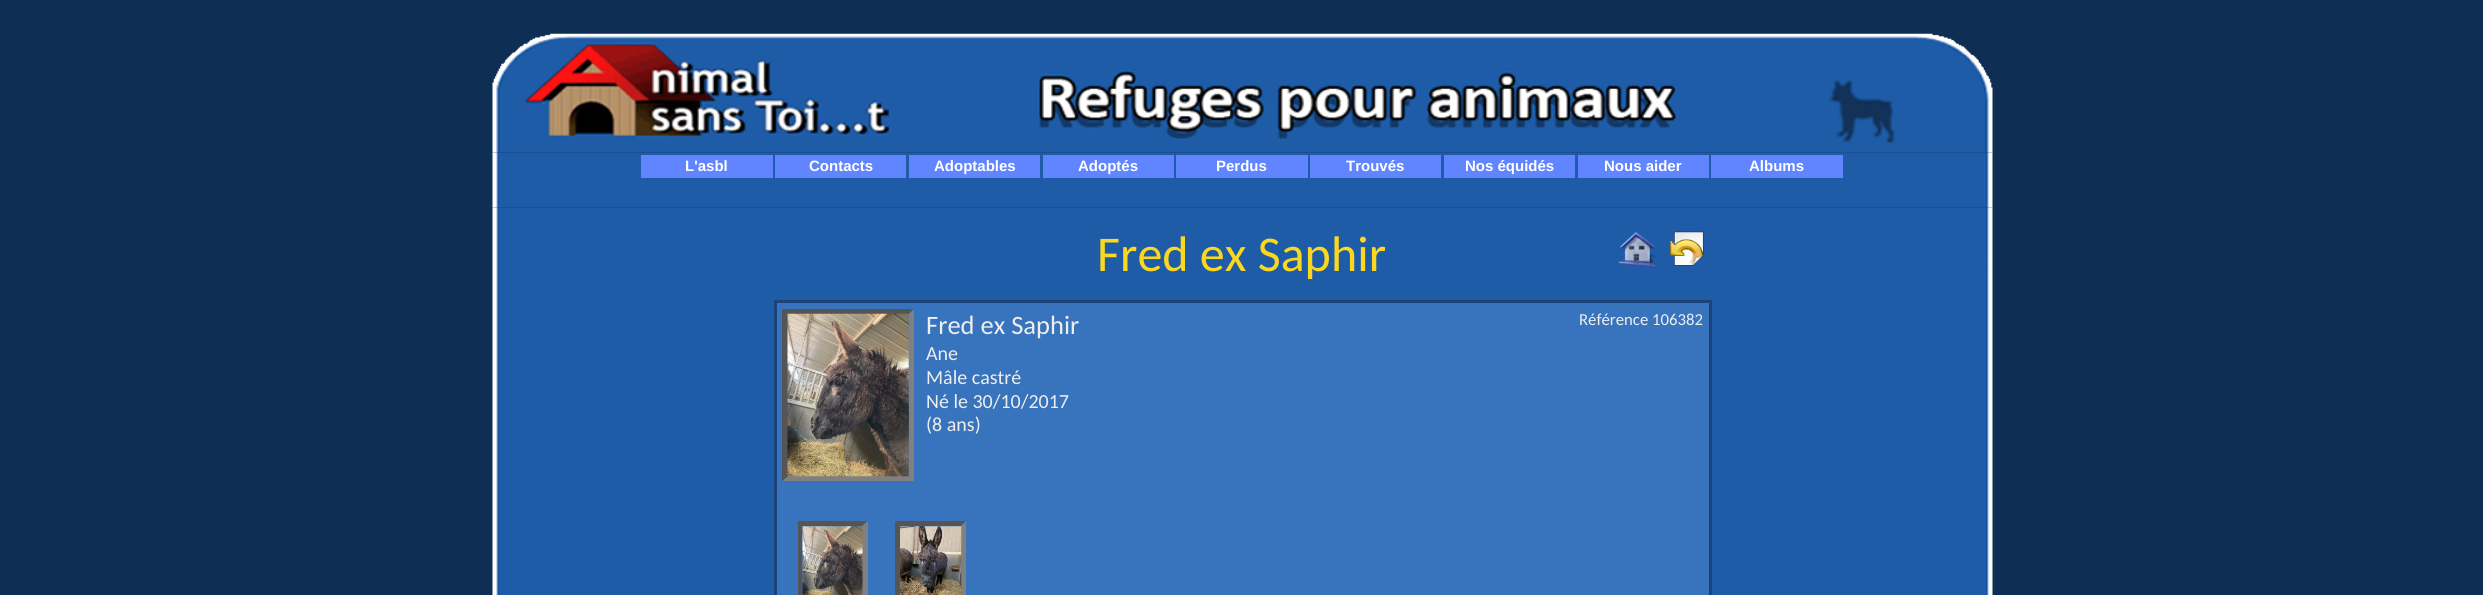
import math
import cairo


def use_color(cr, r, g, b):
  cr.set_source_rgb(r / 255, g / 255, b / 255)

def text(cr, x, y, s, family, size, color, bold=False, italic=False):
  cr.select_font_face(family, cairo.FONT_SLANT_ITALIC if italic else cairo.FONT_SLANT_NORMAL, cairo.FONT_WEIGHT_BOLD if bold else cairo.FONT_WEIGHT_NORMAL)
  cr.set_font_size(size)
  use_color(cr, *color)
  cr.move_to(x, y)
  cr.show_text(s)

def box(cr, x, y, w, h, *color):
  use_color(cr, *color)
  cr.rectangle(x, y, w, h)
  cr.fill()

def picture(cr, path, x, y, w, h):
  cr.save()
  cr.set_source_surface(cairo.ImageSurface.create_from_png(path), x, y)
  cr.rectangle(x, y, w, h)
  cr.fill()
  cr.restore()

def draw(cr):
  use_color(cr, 15, 46, 83)
  cr.paint()
  picture(cr, "img_01.png", 492, 33, 1501, 120)
  picture(cr, "img_02.png", 492, 152, 1501, 56)
  box(cr, 641, 155, 132, 23, 97, 133, 255)
  box(cr, 775, 155, 131, 23, 97, 133, 255)
  box(cr, 909, 155, 131, 23, 97, 133, 255)
  box(cr, 1043, 155, 131, 23, 97, 133, 255)
  box(cr, 1176, 155, 132, 23, 97, 133, 255)
  box(cr, 1310, 155, 131, 23, 97, 133, 255)
  box(cr, 1444, 155, 131, 23, 97, 133, 255)
  box(cr, 1578, 155, 131, 23, 97, 133, 255)
  box(cr, 1711, 155, 132, 23, 97, 133, 255)
  picture(cr, "img_03.png", 492, 207, 1501, 388)
  picture(cr, "img_04.png", 1618, 232, 38, 36)
  picture(cr, "img_05.png", 1670, 231, 34, 35)
  box(cr, 777, 303, 932, 292, 56, 116, 189)
  box(cr, 774, 300, 937, 3, 27, 66, 121)
  box(cr, 1709, 300, 3, 295, 27, 66, 121)
  box(cr, 774, 300, 3, 295, 27, 66, 121)
  use_color(cr, 85, 85, 85)
  cr.new_path()
  cr.move_to(782, 309)
  cr.line_to(914, 309)
  cr.line_to(909, 314)
  cr.line_to(788, 314)
  cr.close_path()
  cr.fill()
  use_color(cr, 128, 128, 128)
  cr.new_path()
  cr.move_to(914, 309)
  cr.line_to(914, 481)
  cr.line_to(909, 476)
  cr.line_to(909, 314)
  cr.close_path()
  cr.fill()
  cr.new_path()
  cr.move_to(914, 481)
  cr.line_to(782, 481)
  cr.line_to(788, 476)
  cr.line_to(909, 476)
  cr.close_path()
  cr.fill()
  use_color(cr, 85, 85, 85)
  cr.new_path()
  cr.move_to(782, 481)
  cr.line_to(782, 309)
  cr.line_to(788, 314)
  cr.line_to(788, 476)
  cr.close_path()
  cr.fill()
  picture(cr, "img_06.png", 787, 313, 122, 164)
  cr.new_path()
  cr.move_to(798, 521)
  cr.line_to(868, 521)
  cr.line_to(862, 526)
  cr.line_to(802, 526)
  cr.close_path()
  cr.fill()
  cr.new_path()
  cr.move_to(798, 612)
  cr.line_to(798, 521)
  cr.line_to(802, 526)
  cr.line_to(802, 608)
  cr.close_path()
  cr.fill()
  use_color(cr, 128, 128, 128)
  cr.new_path()
  cr.move_to(868, 521)
  cr.line_to(868, 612)
  cr.line_to(862, 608)
  cr.line_to(862, 526)
  cr.close_path()
  cr.fill()
  picture(cr, "img_07.png", 802, 526, 61, 69)
  use_color(cr, 85, 85, 85)
  cr.new_path()
  cr.move_to(895, 521)
  cr.line_to(966, 521)
  cr.line_to(961, 526)
  cr.line_to(900, 526)
  cr.close_path()
  cr.fill()
  cr.new_path()
  cr.move_to(895, 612)
  cr.line_to(895, 521)
  cr.line_to(900, 526)
  cr.line_to(900, 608)
  cr.close_path()
  cr.fill()
  use_color(cr, 128, 128, 128)
  cr.new_path()
  cr.move_to(966, 521)
  cr.line_to(966, 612)
  cr.line_to(961, 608)
  cr.line_to(961, 526)
  cr.close_path()
  cr.fill()
  picture(cr, "img_08.png", 900, 526, 62, 69)
  text(cr, 685, 171, "L'asbl", "Liberation Sans", 15, (255, 255, 255), bold=True)
  text(cr, 809, 171, "Contacts", "Liberation Sans", 15, (255, 255, 255), bold=True)
  text(cr, 934, 171, "Adoptables", "Liberation Sans", 15, (255, 255, 255), bold=True)
  text(cr, 1078, 171, "Adoptés", "Liberation Sans", 15, (255, 255, 255), bold=True)
  text(cr, 1216, 171, "Perdus", "Liberation Sans", 15, (255, 255, 255), bold=True)
  text(cr, 1346, 171, "Trouvés", "Liberation Sans", 15, (255, 255, 255), bold=True)
  text(cr, 1465, 171, "Nos équidés", "Liberation Sans", 15, (255, 255, 255), bold=True)
  text(cr, 1604, 171, "Nous aider", "Liberation Sans", 15, (255, 255, 255), bold=True)
  text(cr, 1749, 171, "Albums", "Liberation Sans", 15, (255, 255, 255), bold=True)
  text(cr, 1097, 271, "Fred ex Saphir", "Carlito", 50, (251, 216, 31))
  text(cr, 926, 334, "Fred ex Saphir", "Carlito", 26.5, (238, 238, 238))
  text(cr, 926, 360, "Ane", "Carlito", 20, (238, 238, 238))
  text(cr, 926, 384, "Mâle castré", "Carlito", 20, (238, 238, 238))
  text(cr, 926, 408, "Né le 30/10/2017", "Carlito", 20, (238, 238, 238))
  text(cr, 926, 431, "(8 ans)", "Carlito", 20, (238, 238, 238))
  text(cr, 1579, 325, "Référence 106382", "Carlito", 16.75, (238, 238, 238))


surface = cairo.ImageSurface(cairo.FORMAT_RGB24, 2483, 595)
cr = cairo.Context(surface)
options = cairo.FontOptions()
options.set_hint_metrics(cairo.HINT_METRICS_OFF)
options.set_hint_style(cairo.HINT_STYLE_NONE)
cr.set_font_options(options)
cr.set_miter_limit(4)
draw(cr)
surface.write_to_png("out.png")
